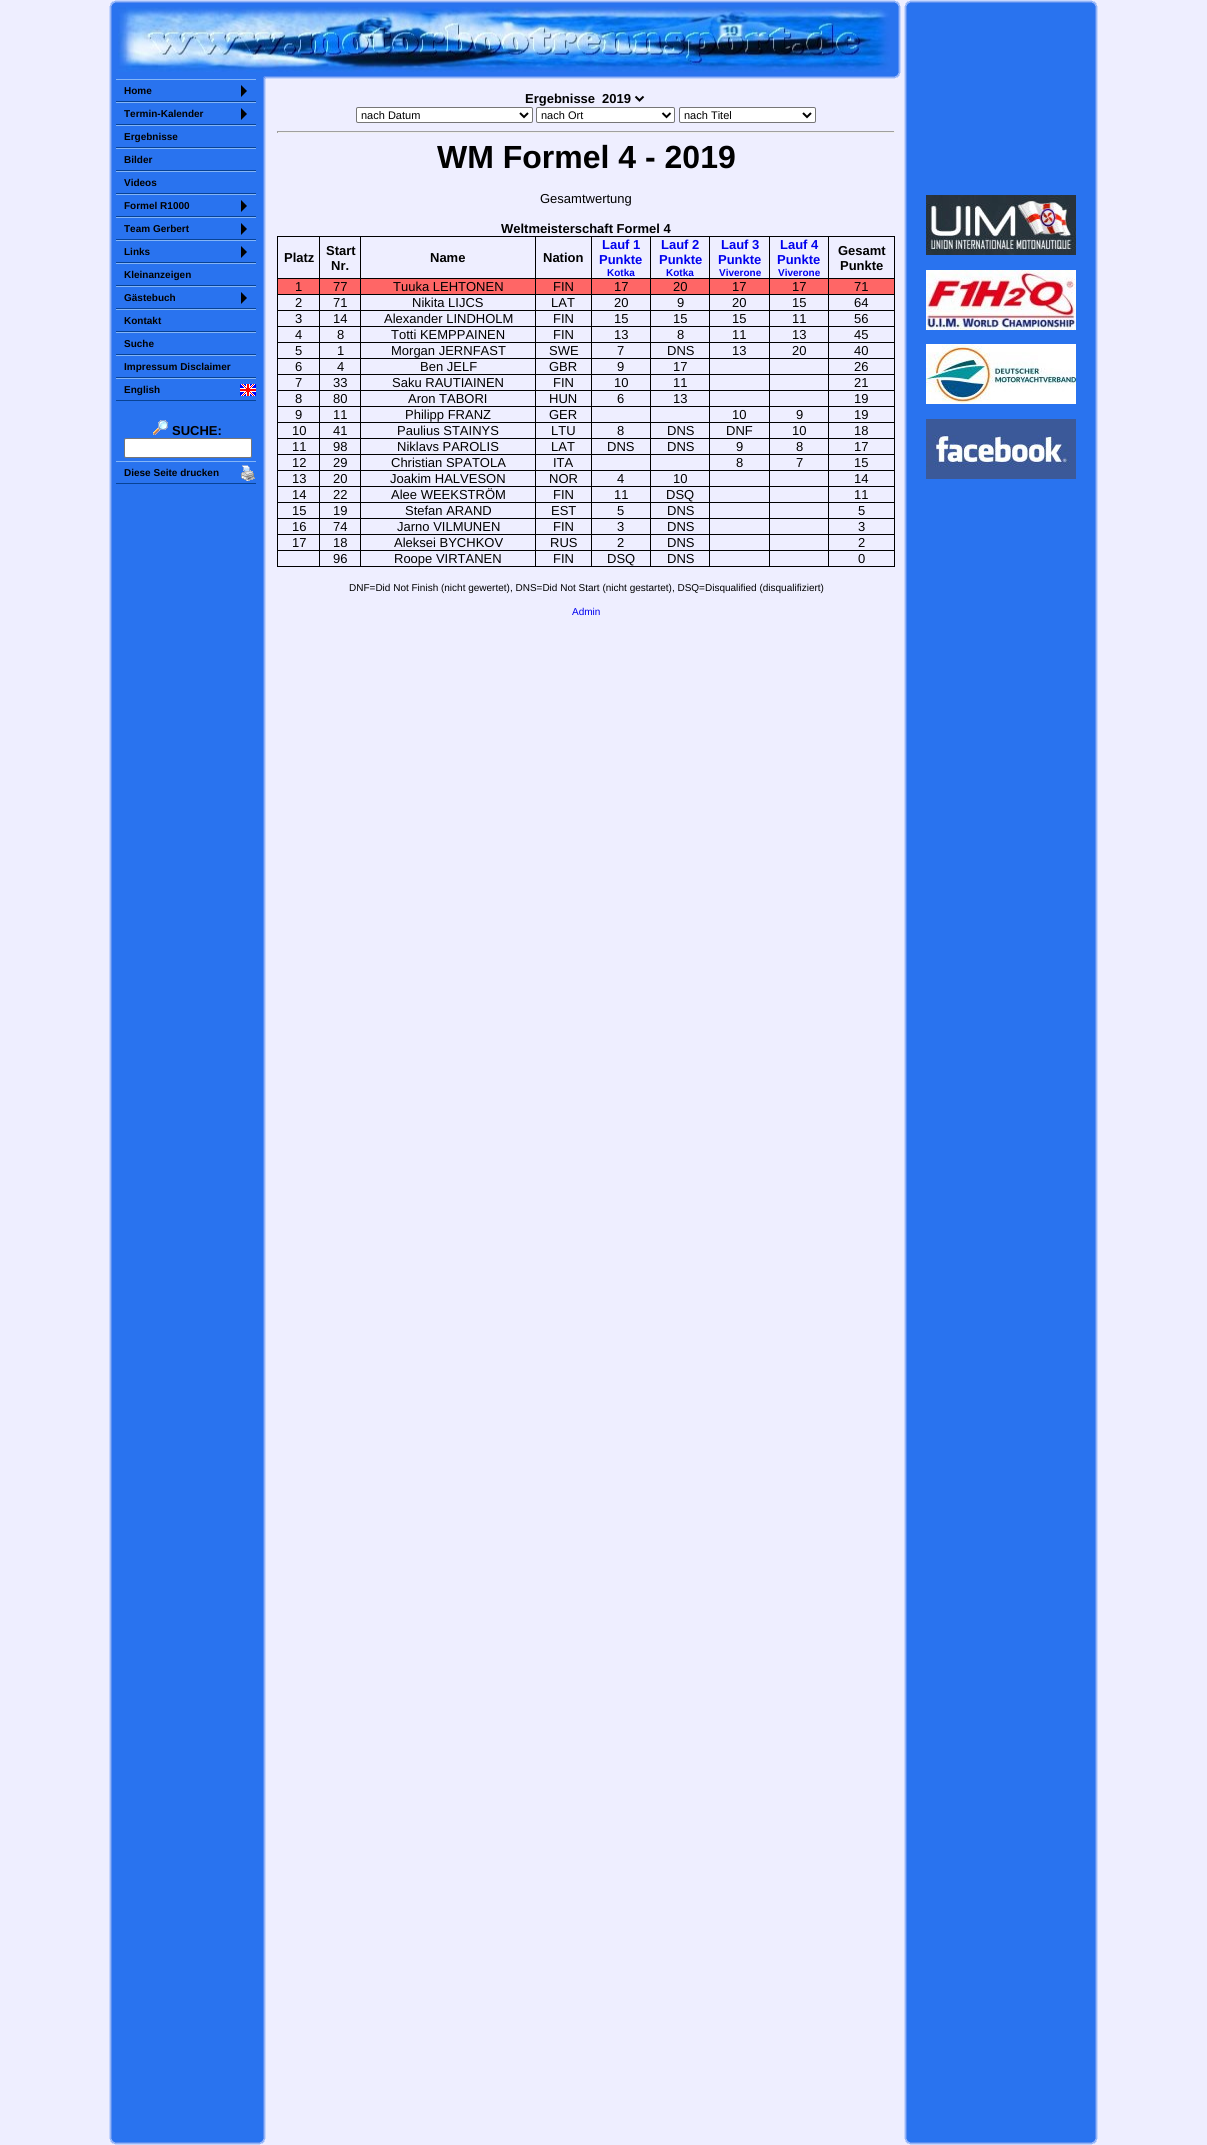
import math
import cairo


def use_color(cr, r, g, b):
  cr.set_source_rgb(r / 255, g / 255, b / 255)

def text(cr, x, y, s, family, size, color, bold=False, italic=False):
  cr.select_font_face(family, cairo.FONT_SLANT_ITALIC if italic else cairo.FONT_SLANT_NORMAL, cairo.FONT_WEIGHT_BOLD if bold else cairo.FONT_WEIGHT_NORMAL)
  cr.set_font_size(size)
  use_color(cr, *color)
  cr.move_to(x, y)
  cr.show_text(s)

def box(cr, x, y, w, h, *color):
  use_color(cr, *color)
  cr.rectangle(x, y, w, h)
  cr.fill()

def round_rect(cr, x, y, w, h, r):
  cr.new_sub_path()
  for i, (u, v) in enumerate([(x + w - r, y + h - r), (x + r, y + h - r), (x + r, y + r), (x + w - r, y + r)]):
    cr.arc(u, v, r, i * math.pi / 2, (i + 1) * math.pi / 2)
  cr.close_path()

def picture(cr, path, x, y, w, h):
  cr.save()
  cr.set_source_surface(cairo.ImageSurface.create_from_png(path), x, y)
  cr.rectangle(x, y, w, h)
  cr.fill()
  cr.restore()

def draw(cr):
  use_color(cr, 238, 238, 255)
  cr.paint()
  picture(cr, "img_01.png", 109, 0, 7, 7)
  picture(cr, "img_02.png", 116, 0, 778, 7)
  picture(cr, "img_03.png", 894, 0, 7, 7)
  picture(cr, "img_01.png", 904, 0, 7, 7)
  picture(cr, "img_04.png", 911, 0, 180, 7)
  picture(cr, "img_03.png", 1091, 0, 7, 7)
  picture(cr, "img_05.png", 109, 7, 7, 65)
  box(cr, 116, 7, 778, 65, 41, 115, 239)
  picture(cr, "img_06.png", 118, 7, 772, 65)
  picture(cr, "img_07.png", 894, 7, 7, 65)
  picture(cr, "img_08.png", 904, 7, 7, 2131)
  box(cr, 911, 7, 180, 2131, 41, 115, 239)
  picture(cr, "img_09.png", 926, 195, 150, 60)
  picture(cr, "img_10.png", 926, 270, 150, 60)
  picture(cr, "img_11.png", 926, 344, 150, 60)
  picture(cr, "img_12.png", 926, 419, 150, 60)
  picture(cr, "img_13.png", 1091, 7, 7, 2131)
  picture(cr, "img_14.png", 109, 72, 7, 7)
  box(cr, 116, 72, 143, 2066, 41, 115, 239)
  picture(cr, "img_15.png", 259, 72, 7, 7)
  picture(cr, "img_16.png", 266, 72, 628, 7)
  picture(cr, "img_17.png", 894, 72, 7, 7)
  picture(cr, "img_18.png", 109, 79, 7, 2059)
  box(cr, 116, 79, 140, 1, 132, 181, 247)
  box(cr, 116, 101, 140, 1, 8, 66, 148)
  use_color(cr, 0, 0, 0)
  cr.new_path()
  cr.move_to(241, 97)
  cr.line_to(241, 85)
  cr.line_to(247, 91)
  cr.close_path()
  cr.fill()
  box(cr, 116, 102, 140, 1, 132, 181, 247)
  box(cr, 116, 124, 140, 1, 8, 66, 148)
  use_color(cr, 0, 0, 0)
  cr.new_path()
  cr.move_to(241, 120)
  cr.line_to(241, 108)
  cr.line_to(247, 114)
  cr.close_path()
  cr.fill()
  box(cr, 116, 125, 140, 1, 132, 181, 247)
  box(cr, 116, 147, 140, 1, 8, 66, 148)
  box(cr, 116, 148, 140, 1, 132, 181, 247)
  box(cr, 116, 170, 140, 1, 8, 66, 148)
  box(cr, 116, 171, 140, 1, 132, 181, 247)
  box(cr, 116, 193, 140, 1, 8, 66, 148)
  box(cr, 116, 194, 140, 1, 132, 181, 247)
  box(cr, 116, 216, 140, 1, 8, 66, 148)
  use_color(cr, 0, 0, 0)
  cr.new_path()
  cr.move_to(241, 212)
  cr.line_to(241, 200)
  cr.line_to(247, 206)
  cr.close_path()
  cr.fill()
  box(cr, 116, 217, 140, 1, 132, 181, 247)
  box(cr, 116, 239, 140, 1, 8, 66, 148)
  use_color(cr, 0, 0, 0)
  cr.new_path()
  cr.move_to(241, 235)
  cr.line_to(241, 223)
  cr.line_to(247, 229)
  cr.close_path()
  cr.fill()
  box(cr, 116, 240, 140, 1, 132, 181, 247)
  box(cr, 116, 262, 140, 1, 8, 66, 148)
  use_color(cr, 0, 0, 0)
  cr.new_path()
  cr.move_to(241, 258)
  cr.line_to(241, 246)
  cr.line_to(247, 252)
  cr.close_path()
  cr.fill()
  box(cr, 116, 263, 140, 1, 132, 181, 247)
  box(cr, 116, 285, 140, 1, 8, 66, 148)
  box(cr, 116, 286, 140, 1, 132, 181, 247)
  box(cr, 116, 308, 140, 1, 8, 66, 148)
  use_color(cr, 0, 0, 0)
  cr.new_path()
  cr.move_to(241, 304)
  cr.line_to(241, 292)
  cr.line_to(247, 298)
  cr.close_path()
  cr.fill()
  box(cr, 116, 309, 140, 1, 132, 181, 247)
  box(cr, 116, 331, 140, 1, 8, 66, 148)
  box(cr, 116, 332, 140, 1, 132, 181, 247)
  box(cr, 116, 354, 140, 1, 8, 66, 148)
  box(cr, 116, 355, 140, 1, 132, 181, 247)
  box(cr, 116, 377, 140, 1, 8, 66, 148)
  picture(cr, "img_19.png", 240, 384, 16, 12)
  box(cr, 116, 378, 140, 1, 132, 181, 247)
  box(cr, 116, 400, 140, 1, 8, 66, 148)
  picture(cr, "img_20.png", 153, 420, 15, 15)
  use_color(cr, 255, 255, 255)
  round_rect(cr, 124.5, 438.5, 127, 19, 1.5)
  cr.fill_preserve()
  use_color(cr, 118, 118, 118)
  cr.set_line_width(1)
  cr.stroke()
  picture(cr, "img_21.png", 241, 465, 14, 16)
  box(cr, 116, 461, 140, 1, 132, 181, 247)
  box(cr, 116, 483, 140, 1, 8, 66, 148)
  picture(cr, "img_22.png", 259, 79, 7, 2059)
  cr.new_path()
  cr.move_to(635.5, 96.5)
  cr.line_to(639.5, 100.5)
  cr.line_to(643.5, 96.5)
  use_color(cr, 0, 0, 0)
  cr.set_line_width(2)
  cr.stroke()
  use_color(cr, 255, 255, 255)
  round_rect(cr, 356.5, 107.5, 176, 15, 1.5)
  cr.fill_preserve()
  use_color(cr, 118, 118, 118)
  cr.set_line_width(1)
  cr.stroke()
  cr.new_path()
  cr.move_to(520, 113)
  cr.line_to(524, 117)
  cr.line_to(528, 113)
  use_color(cr, 0, 0, 0)
  cr.set_line_width(2)
  cr.stroke()
  use_color(cr, 255, 255, 255)
  round_rect(cr, 536.5, 107.5, 138, 15, 1.5)
  cr.fill_preserve()
  use_color(cr, 118, 118, 118)
  cr.set_line_width(1)
  cr.stroke()
  cr.new_path()
  cr.move_to(662.5, 113)
  cr.line_to(666.5, 117)
  cr.line_to(670.5, 113)
  use_color(cr, 0, 0, 0)
  cr.set_line_width(2)
  cr.stroke()
  use_color(cr, 255, 255, 255)
  round_rect(cr, 679.5, 107.5, 136, 15, 1.5)
  cr.fill_preserve()
  use_color(cr, 118, 118, 118)
  cr.set_line_width(1)
  cr.stroke()
  cr.new_path()
  cr.move_to(803, 113)
  cr.line_to(807, 117)
  cr.line_to(811, 113)
  use_color(cr, 0, 0, 0)
  cr.set_line_width(2)
  cr.stroke()
  box(cr, 277, 131, 618, 1, 159, 159, 159)
  box(cr, 894, 131, 1, 2, 238, 238, 238)
  box(cr, 277, 132, 618, 1, 238, 238, 238)
  box(cr, 277, 131, 1, 2, 159, 159, 159)
  box(cr, 277, 236, 618, 1, 0, 0, 0)
  box(cr, 277, 236, 1, 331, 0, 0, 0)
  box(cr, 319, 237, 1, 42, 0, 0, 0)
  box(cr, 278, 278, 42, 1, 0, 0, 0)
  box(cr, 360, 237, 1, 42, 0, 0, 0)
  box(cr, 320, 278, 41, 1, 0, 0, 0)
  box(cr, 535, 237, 1, 42, 0, 0, 0)
  box(cr, 361, 278, 175, 1, 0, 0, 0)
  box(cr, 591, 237, 1, 42, 0, 0, 0)
  box(cr, 536, 278, 56, 1, 0, 0, 0)
  box(cr, 650, 237, 1, 42, 0, 0, 0)
  box(cr, 592, 278, 59, 1, 0, 0, 0)
  box(cr, 709, 237, 1, 42, 0, 0, 0)
  box(cr, 651, 278, 59, 1, 0, 0, 0)
  box(cr, 769, 237, 1, 42, 0, 0, 0)
  box(cr, 710, 278, 60, 1, 0, 0, 0)
  box(cr, 828, 237, 1, 42, 0, 0, 0)
  box(cr, 770, 278, 59, 1, 0, 0, 0)
  box(cr, 894, 237, 1, 330, 0, 0, 0)
  box(cr, 829, 278, 66, 1, 0, 0, 0)
  box(cr, 278, 279, 616, 15, 255, 102, 102)
  box(cr, 319, 279, 1, 288, 0, 0, 0)
  box(cr, 278, 294, 42, 1, 0, 0, 0)
  box(cr, 360, 279, 1, 288, 0, 0, 0)
  box(cr, 320, 294, 41, 1, 0, 0, 0)
  box(cr, 535, 279, 1, 288, 0, 0, 0)
  box(cr, 361, 294, 175, 1, 0, 0, 0)
  box(cr, 591, 279, 1, 288, 0, 0, 0)
  box(cr, 536, 294, 56, 1, 0, 0, 0)
  box(cr, 650, 279, 1, 288, 0, 0, 0)
  box(cr, 592, 294, 59, 1, 0, 0, 0)
  box(cr, 709, 279, 1, 288, 0, 0, 0)
  box(cr, 651, 294, 59, 1, 0, 0, 0)
  box(cr, 769, 279, 1, 288, 0, 0, 0)
  box(cr, 710, 294, 60, 1, 0, 0, 0)
  box(cr, 828, 279, 1, 288, 0, 0, 0)
  box(cr, 770, 294, 125, 1, 0, 0, 0)
  box(cr, 278, 310, 617, 1, 0, 0, 0)
  box(cr, 278, 326, 617, 1, 0, 0, 0)
  box(cr, 278, 342, 617, 1, 0, 0, 0)
  box(cr, 278, 358, 617, 1, 0, 0, 0)
  box(cr, 278, 374, 617, 1, 0, 0, 0)
  box(cr, 278, 390, 617, 1, 0, 0, 0)
  box(cr, 278, 406, 617, 1, 0, 0, 0)
  box(cr, 278, 422, 617, 1, 0, 0, 0)
  box(cr, 278, 438, 617, 1, 0, 0, 0)
  box(cr, 278, 454, 617, 1, 0, 0, 0)
  box(cr, 278, 470, 617, 1, 0, 0, 0)
  box(cr, 278, 486, 617, 1, 0, 0, 0)
  box(cr, 278, 502, 617, 1, 0, 0, 0)
  box(cr, 278, 518, 617, 1, 0, 0, 0)
  box(cr, 278, 534, 617, 1, 0, 0, 0)
  box(cr, 278, 550, 617, 1, 0, 0, 0)
  box(cr, 278, 566, 617, 1, 0, 0, 0)
  picture(cr, "img_23.png", 109, 2138, 7, 7)
  picture(cr, "img_24.png", 116, 2138, 143, 7)
  picture(cr, "img_17.png", 259, 2138, 7, 7)
  picture(cr, "img_23.png", 904, 2138, 7, 7)
  picture(cr, "img_25.png", 911, 2138, 180, 7)
  picture(cr, "img_17.png", 1091, 2138, 7, 7)
  text(cr, 124, 94, "Home", "Liberation Sans", 10, (0, 0, 0), bold=True)
  text(cr, 124, 117, "Termin-Kalender", "Liberation Sans", 10, (0, 0, 0), bold=True)
  text(cr, 124, 140, "Ergebnisse", "Liberation Sans", 10, (0, 0, 0), bold=True)
  text(cr, 124, 163, "Bilder", "Liberation Sans", 10, (0, 0, 0), bold=True)
  text(cr, 124, 186, "Videos", "Liberation Sans", 10, (0, 0, 0), bold=True)
  text(cr, 124, 209, "Formel R1000", "Liberation Sans", 10, (0, 0, 0), bold=True)
  text(cr, 124, 232, "Team Gerbert", "Liberation Sans", 10, (0, 0, 0), bold=True)
  text(cr, 124, 255, "Links", "Liberation Sans", 10, (0, 0, 0), bold=True)
  text(cr, 124, 278, "Kleinanzeigen", "Liberation Sans", 10, (0, 0, 0), bold=True)
  text(cr, 124, 301, "Gästebuch", "Liberation Sans", 10, (0, 0, 0), bold=True)
  text(cr, 124, 324, "Kontakt", "Liberation Sans", 10, (0, 0, 0), bold=True)
  text(cr, 124, 347, "Suche", "Liberation Sans", 10, (0, 0, 0), bold=True)
  text(cr, 124, 370, "Impressum Disclaimer", "Liberation Sans", 10, (0, 0, 0), bold=True)
  text(cr, 124, 393, "English", "Liberation Sans", 10, (0, 0, 0), bold=True)
  text(cr, 172, 435, "SUCHE:", "Liberation Sans", 13, (0, 0, 0), bold=True)
  text(cr, 124, 476, "Diese Seite drucken", "Liberation Sans", 10, (0, 0, 0), bold=True)
  text(cr, 525, 103, "Ergebnisse", "Liberation Sans", 13, (0, 0, 0), bold=True)
  text(cr, 602, 103, "2019", "Liberation Sans", 13, (0, 0, 0), bold=True)
  text(cr, 361, 119, "nach Datum", "Liberation Sans", 11, (0, 0, 0))
  text(cr, 541, 119, "nach Ort", "Liberation Sans", 11, (0, 0, 0))
  text(cr, 684, 119, "nach Titel", "Liberation Sans", 11, (0, 0, 0))
  text(cr, 437, 168, "WM Formel 4 - 2019", "Liberation Sans", 32, (0, 0, 0), bold=True)
  text(cr, 540, 203, "Gesamtwertung", "Liberation Sans", 13, (0, 0, 0))
  text(cr, 501, 233, "Weltmeisterschaft Formel 4", "Liberation Sans", 13, (0, 0, 0), bold=True)
  text(cr, 284, 262, "Platz", "Liberation Sans", 13, (0, 0, 0), bold=True)
  text(cr, 326, 255, "Start", "Liberation Sans", 13, (0, 0, 0), bold=True)
  text(cr, 331, 270, "Nr.", "Liberation Sans", 13, (0, 0, 0), bold=True)
  text(cr, 430, 262, "Name", "Liberation Sans", 13, (0, 0, 0), bold=True)
  text(cr, 543, 262, "Nation", "Liberation Sans", 13, (0, 0, 0), bold=True)
  text(cr, 602, 249, "Lauf 1", "Liberation Sans", 13, (0, 0, 238), bold=True)
  text(cr, 599, 264, "Punkte", "Liberation Sans", 13, (0, 0, 238), bold=True)
  text(cr, 607, 276, "Kotka", "Liberation Sans", 10, (0, 0, 238), bold=True)
  text(cr, 661, 249, "Lauf 2", "Liberation Sans", 13, (0, 0, 238), bold=True)
  text(cr, 659, 264, "Punkte", "Liberation Sans", 13, (0, 0, 238), bold=True)
  text(cr, 666, 276, "Kotka", "Liberation Sans", 10, (0, 0, 238), bold=True)
  text(cr, 721, 249, "Lauf 3", "Liberation Sans", 13, (0, 0, 238), bold=True)
  text(cr, 718, 264, "Punkte", "Liberation Sans", 13, (0, 0, 238), bold=True)
  text(cr, 719, 276, "Viverone", "Liberation Sans", 10, (0, 0, 238), bold=True)
  text(cr, 780, 249, "Lauf 4", "Liberation Sans", 13, (0, 0, 238), bold=True)
  text(cr, 777, 264, "Punkte", "Liberation Sans", 13, (0, 0, 238), bold=True)
  text(cr, 778, 276, "Viverone", "Liberation Sans", 10, (0, 0, 238), bold=True)
  text(cr, 838, 255, "Gesamt", "Liberation Sans", 13, (0, 0, 0), bold=True)
  text(cr, 840, 270, "Punkte", "Liberation Sans", 13, (0, 0, 0), bold=True)
  text(cr, 295, 291, "1", "Liberation Sans", 13, (0, 0, 0))
  text(cr, 333, 291, "77", "Liberation Sans", 13, (0, 0, 0))
  text(cr, 393, 291, "Tuuka LEHTONEN", "Liberation Sans", 13, (0, 0, 0))
  text(cr, 553, 291, "FIN", "Liberation Sans", 13, (0, 0, 0))
  text(cr, 614, 291, "17", "Liberation Sans", 13, (0, 0, 0))
  text(cr, 673, 291, "20", "Liberation Sans", 13, (0, 0, 0))
  text(cr, 732, 291, "17", "Liberation Sans", 13, (0, 0, 0))
  text(cr, 792, 291, "17", "Liberation Sans", 13, (0, 0, 0))
  text(cr, 854, 291, "71", "Liberation Sans", 13, (0, 0, 0))
  text(cr, 295, 307, "2", "Liberation Sans", 13, (0, 0, 0))
  text(cr, 333, 307, "71", "Liberation Sans", 13, (0, 0, 0))
  text(cr, 412, 307, "Nikita LIJCS", "Liberation Sans", 13, (0, 0, 0))
  text(cr, 551, 307, "LAT", "Liberation Sans", 13, (0, 0, 0))
  text(cr, 614, 307, "20", "Liberation Sans", 13, (0, 0, 0))
  text(cr, 677, 307, "9", "Liberation Sans", 13, (0, 0, 0))
  text(cr, 732, 307, "20", "Liberation Sans", 13, (0, 0, 0))
  text(cr, 792, 307, "15", "Liberation Sans", 13, (0, 0, 0))
  text(cr, 854, 307, "64", "Liberation Sans", 13, (0, 0, 0))
  text(cr, 295, 323, "3", "Liberation Sans", 13, (0, 0, 0))
  text(cr, 333, 323, "14", "Liberation Sans", 13, (0, 0, 0))
  text(cr, 384, 323, "Alexander LINDHOLM", "Liberation Sans", 13, (0, 0, 0))
  text(cr, 553, 323, "FIN", "Liberation Sans", 13, (0, 0, 0))
  text(cr, 614, 323, "15", "Liberation Sans", 13, (0, 0, 0))
  text(cr, 673, 323, "15", "Liberation Sans", 13, (0, 0, 0))
  text(cr, 732, 323, "15", "Liberation Sans", 13, (0, 0, 0))
  text(cr, 792, 323, "11", "Liberation Sans", 13, (0, 0, 0))
  text(cr, 854, 323, "56", "Liberation Sans", 13, (0, 0, 0))
  text(cr, 295, 339, "4", "Liberation Sans", 13, (0, 0, 0))
  text(cr, 337, 339, "8", "Liberation Sans", 13, (0, 0, 0))
  text(cr, 391, 339, "Totti KEMPPAINEN", "Liberation Sans", 13, (0, 0, 0))
  text(cr, 553, 339, "FIN", "Liberation Sans", 13, (0, 0, 0))
  text(cr, 614, 339, "13", "Liberation Sans", 13, (0, 0, 0))
  text(cr, 677, 339, "8", "Liberation Sans", 13, (0, 0, 0))
  text(cr, 732, 339, "11", "Liberation Sans", 13, (0, 0, 0))
  text(cr, 792, 339, "13", "Liberation Sans", 13, (0, 0, 0))
  text(cr, 854, 339, "45", "Liberation Sans", 13, (0, 0, 0))
  text(cr, 295, 355, "5", "Liberation Sans", 13, (0, 0, 0))
  text(cr, 337, 355, "1", "Liberation Sans", 13, (0, 0, 0))
  text(cr, 391, 355, "Morgan JERNFAST", "Liberation Sans", 13, (0, 0, 0))
  text(cr, 549, 355, "SWE", "Liberation Sans", 13, (0, 0, 0))
  text(cr, 617, 355, "7", "Liberation Sans", 13, (0, 0, 0))
  text(cr, 667, 355, "DNS", "Liberation Sans", 13, (0, 0, 0))
  text(cr, 732, 355, "13", "Liberation Sans", 13, (0, 0, 0))
  text(cr, 792, 355, "20", "Liberation Sans", 13, (0, 0, 0))
  text(cr, 854, 355, "40", "Liberation Sans", 13, (0, 0, 0))
  text(cr, 295, 371, "6", "Liberation Sans", 13, (0, 0, 0))
  text(cr, 337, 371, "4", "Liberation Sans", 13, (0, 0, 0))
  text(cr, 420, 371, "Ben JELF", "Liberation Sans", 13, (0, 0, 0))
  text(cr, 549, 371, "GBR", "Liberation Sans", 13, (0, 0, 0))
  text(cr, 617, 371, "9", "Liberation Sans", 13, (0, 0, 0))
  text(cr, 673, 371, "17", "Liberation Sans", 13, (0, 0, 0))
  text(cr, 854, 371, "26", "Liberation Sans", 13, (0, 0, 0))
  text(cr, 295, 387, "7", "Liberation Sans", 13, (0, 0, 0))
  text(cr, 333, 387, "33", "Liberation Sans", 13, (0, 0, 0))
  text(cr, 392, 387, "Saku RAUTIAINEN", "Liberation Sans", 13, (0, 0, 0))
  text(cr, 553, 387, "FIN", "Liberation Sans", 13, (0, 0, 0))
  text(cr, 614, 387, "10", "Liberation Sans", 13, (0, 0, 0))
  text(cr, 673, 387, "11", "Liberation Sans", 13, (0, 0, 0))
  text(cr, 854, 387, "21", "Liberation Sans", 13, (0, 0, 0))
  text(cr, 295, 403, "8", "Liberation Sans", 13, (0, 0, 0))
  text(cr, 333, 403, "80", "Liberation Sans", 13, (0, 0, 0))
  text(cr, 408, 403, "Aron TABORI", "Liberation Sans", 13, (0, 0, 0))
  text(cr, 549, 403, "HUN", "Liberation Sans", 13, (0, 0, 0))
  text(cr, 617, 403, "6", "Liberation Sans", 13, (0, 0, 0))
  text(cr, 673, 403, "13", "Liberation Sans", 13, (0, 0, 0))
  text(cr, 854, 403, "19", "Liberation Sans", 13, (0, 0, 0))
  text(cr, 295, 419, "9", "Liberation Sans", 13, (0, 0, 0))
  text(cr, 333, 419, "11", "Liberation Sans", 13, (0, 0, 0))
  text(cr, 405, 419, "Philipp FRANZ", "Liberation Sans", 13, (0, 0, 0))
  text(cr, 549, 419, "GER", "Liberation Sans", 13, (0, 0, 0))
  text(cr, 732, 419, "10", "Liberation Sans", 13, (0, 0, 0))
  text(cr, 796, 419, "9", "Liberation Sans", 13, (0, 0, 0))
  text(cr, 854, 419, "19", "Liberation Sans", 13, (0, 0, 0))
  text(cr, 292, 435, "10", "Liberation Sans", 13, (0, 0, 0))
  text(cr, 333, 435, "41", "Liberation Sans", 13, (0, 0, 0))
  text(cr, 397, 435, "Paulius STAINYS", "Liberation Sans", 13, (0, 0, 0))
  text(cr, 551, 435, "LTU", "Liberation Sans", 13, (0, 0, 0))
  text(cr, 617, 435, "8", "Liberation Sans", 13, (0, 0, 0))
  text(cr, 667, 435, "DNS", "Liberation Sans", 13, (0, 0, 0))
  text(cr, 726, 435, "DNF", "Liberation Sans", 13, (0, 0, 0))
  text(cr, 792, 435, "10", "Liberation Sans", 13, (0, 0, 0))
  text(cr, 854, 435, "18", "Liberation Sans", 13, (0, 0, 0))
  text(cr, 292, 451, "11", "Liberation Sans", 13, (0, 0, 0))
  text(cr, 333, 451, "98", "Liberation Sans", 13, (0, 0, 0))
  text(cr, 397, 451, "Niklavs PAROLIS", "Liberation Sans", 13, (0, 0, 0))
  text(cr, 551, 451, "LAT", "Liberation Sans", 13, (0, 0, 0))
  text(cr, 607, 451, "DNS", "Liberation Sans", 13, (0, 0, 0))
  text(cr, 667, 451, "DNS", "Liberation Sans", 13, (0, 0, 0))
  text(cr, 736, 451, "9", "Liberation Sans", 13, (0, 0, 0))
  text(cr, 796, 451, "8", "Liberation Sans", 13, (0, 0, 0))
  text(cr, 854, 451, "17", "Liberation Sans", 13, (0, 0, 0))
  text(cr, 292, 467, "12", "Liberation Sans", 13, (0, 0, 0))
  text(cr, 333, 467, "29", "Liberation Sans", 13, (0, 0, 0))
  text(cr, 391, 467, "Christian SPATOLA", "Liberation Sans", 13, (0, 0, 0))
  text(cr, 553, 467, "ITA", "Liberation Sans", 13, (0, 0, 0))
  text(cr, 736, 467, "8", "Liberation Sans", 13, (0, 0, 0))
  text(cr, 796, 467, "7", "Liberation Sans", 13, (0, 0, 0))
  text(cr, 854, 467, "15", "Liberation Sans", 13, (0, 0, 0))
  text(cr, 292, 483, "13", "Liberation Sans", 13, (0, 0, 0))
  text(cr, 333, 483, "20", "Liberation Sans", 13, (0, 0, 0))
  text(cr, 390, 483, "Joakim HALVESON", "Liberation Sans", 13, (0, 0, 0))
  text(cr, 549, 483, "NOR", "Liberation Sans", 13, (0, 0, 0))
  text(cr, 617, 483, "4", "Liberation Sans", 13, (0, 0, 0))
  text(cr, 673, 483, "10", "Liberation Sans", 13, (0, 0, 0))
  text(cr, 854, 483, "14", "Liberation Sans", 13, (0, 0, 0))
  text(cr, 292, 499, "14", "Liberation Sans", 13, (0, 0, 0))
  text(cr, 333, 499, "22", "Liberation Sans", 13, (0, 0, 0))
  text(cr, 391, 499, "Alee WEEKSTRÖM", "Liberation Sans", 13, (0, 0, 0))
  text(cr, 553, 499, "FIN", "Liberation Sans", 13, (0, 0, 0))
  text(cr, 614, 499, "11", "Liberation Sans", 13, (0, 0, 0))
  text(cr, 666, 499, "DSQ", "Liberation Sans", 13, (0, 0, 0))
  text(cr, 854, 499, "11", "Liberation Sans", 13, (0, 0, 0))
  text(cr, 292, 515, "15", "Liberation Sans", 13, (0, 0, 0))
  text(cr, 333, 515, "19", "Liberation Sans", 13, (0, 0, 0))
  text(cr, 405, 515, "Stefan ARAND", "Liberation Sans", 13, (0, 0, 0))
  text(cr, 551, 515, "EST", "Liberation Sans", 13, (0, 0, 0))
  text(cr, 617, 515, "5", "Liberation Sans", 13, (0, 0, 0))
  text(cr, 667, 515, "DNS", "Liberation Sans", 13, (0, 0, 0))
  text(cr, 858, 515, "5", "Liberation Sans", 13, (0, 0, 0))
  text(cr, 292, 531, "16", "Liberation Sans", 13, (0, 0, 0))
  text(cr, 333, 531, "74", "Liberation Sans", 13, (0, 0, 0))
  text(cr, 397, 531, "Jarno VILMUNEN", "Liberation Sans", 13, (0, 0, 0))
  text(cr, 553, 531, "FIN", "Liberation Sans", 13, (0, 0, 0))
  text(cr, 617, 531, "3", "Liberation Sans", 13, (0, 0, 0))
  text(cr, 667, 531, "DNS", "Liberation Sans", 13, (0, 0, 0))
  text(cr, 858, 531, "3", "Liberation Sans", 13, (0, 0, 0))
  text(cr, 292, 547, "17", "Liberation Sans", 13, (0, 0, 0))
  text(cr, 333, 547, "18", "Liberation Sans", 13, (0, 0, 0))
  text(cr, 394, 547, "Aleksei BYCHKOV", "Liberation Sans", 13, (0, 0, 0))
  text(cr, 550, 547, "RUS", "Liberation Sans", 13, (0, 0, 0))
  text(cr, 617, 547, "2", "Liberation Sans", 13, (0, 0, 0))
  text(cr, 667, 547, "DNS", "Liberation Sans", 13, (0, 0, 0))
  text(cr, 858, 547, "2", "Liberation Sans", 13, (0, 0, 0))
  text(cr, 333, 563, "96", "Liberation Sans", 13, (0, 0, 0))
  text(cr, 394, 563, "Roope VIRTANEN", "Liberation Sans", 13, (0, 0, 0))
  text(cr, 553, 563, "FIN", "Liberation Sans", 13, (0, 0, 0))
  text(cr, 607, 563, "DSQ", "Liberation Sans", 13, (0, 0, 0))
  text(cr, 667, 563, "DNS", "Liberation Sans", 13, (0, 0, 0))
  text(cr, 858, 563, "0", "Liberation Sans", 13, (0, 0, 0))
  text(cr, 349, 591, "DNF=Did Not Finish (nicht gewertet), DNS=Did Not Start (nicht gestartet), DSQ=Disqualified (disqualifiziert)", "Liberation Sans", 10, (0, 0, 0))
  text(cr, 572, 615, "Admin", "Liberation Sans", 10, (0, 0, 238))


surface = cairo.ImageSurface(cairo.FORMAT_RGB24, 1207, 2145)
cr = cairo.Context(surface)
options = cairo.FontOptions()
options.set_hint_metrics(cairo.HINT_METRICS_OFF)
options.set_hint_style(cairo.HINT_STYLE_NONE)
cr.set_font_options(options)
cr.set_miter_limit(4)
draw(cr)
surface.write_to_png("out.png")
